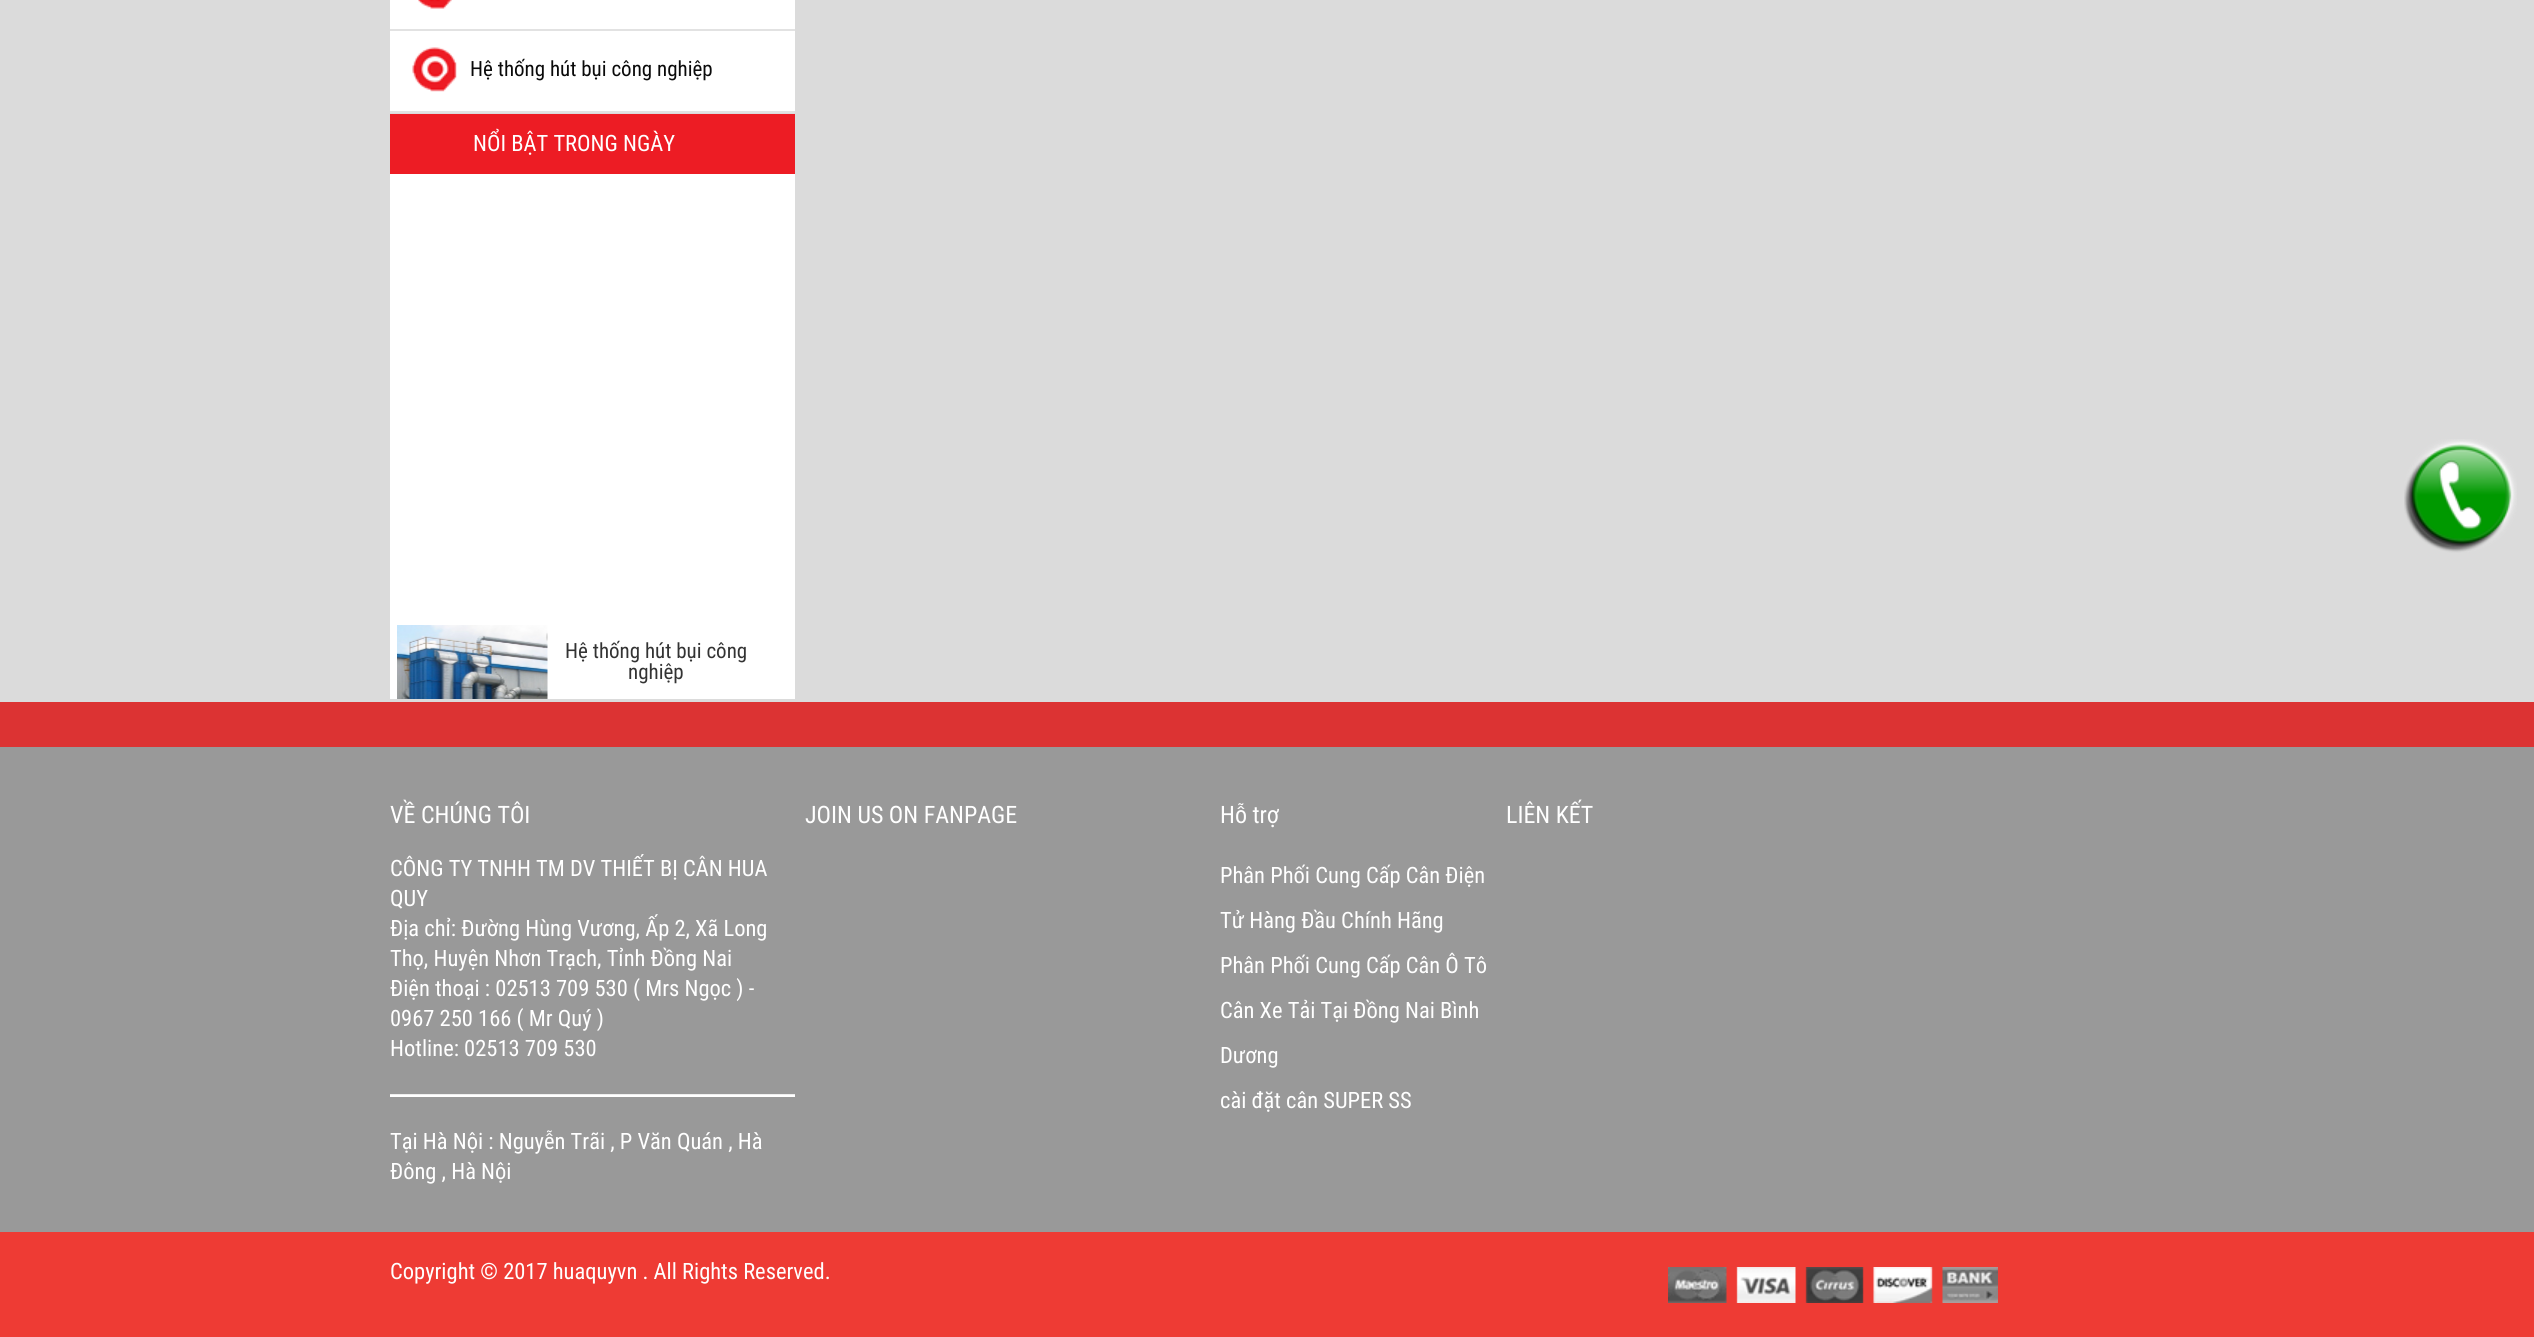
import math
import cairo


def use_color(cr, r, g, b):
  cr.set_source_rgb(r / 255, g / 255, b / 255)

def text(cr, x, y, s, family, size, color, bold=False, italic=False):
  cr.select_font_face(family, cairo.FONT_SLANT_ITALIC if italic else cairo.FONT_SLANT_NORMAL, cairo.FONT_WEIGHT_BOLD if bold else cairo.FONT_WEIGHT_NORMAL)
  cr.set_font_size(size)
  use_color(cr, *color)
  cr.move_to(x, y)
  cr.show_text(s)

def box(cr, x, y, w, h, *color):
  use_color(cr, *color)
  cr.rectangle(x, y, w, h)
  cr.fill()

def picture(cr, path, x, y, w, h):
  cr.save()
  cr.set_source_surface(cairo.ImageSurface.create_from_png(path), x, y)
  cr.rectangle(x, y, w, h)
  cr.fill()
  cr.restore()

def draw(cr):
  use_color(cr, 219, 219, 219)
  cr.paint()
  box(cr, 390, 0, 405, 111, 255, 255, 255)
  box(cr, 390, 29, 405, 2, 226, 226, 226)
  picture(cr, "img_01.png", 418, 0, 34, 9)
  box(cr, 390, 111, 405, 2, 226, 226, 226)
  picture(cr, "img_02.png", 412, 47, 45, 45)
  box(cr, 390, 114, 405, 60, 237, 28, 36)
  box(cr, 390, 174, 405, 525, 255, 255, 255)
  picture(cr, "img_03.png", 397, 625, 151, 74)
  box(cr, 0, 702, 2534, 45, 220, 51, 51)
  box(cr, 0, 747, 2534, 485, 153, 153, 153)
  box(cr, 390, 1094, 405, 1, 238, 238, 238)
  box(cr, 390, 1095, 405, 2, 255, 255, 255)
  box(cr, 0, 1232, 2534, 105, 238, 59, 52)
  picture(cr, "img_04.png", 1668, 1267, 330, 36)
  picture(cr, "img_05.png", 2404, 439, 113, 114)
  text(cr, 470, 76, "Hệ thống hút bụi công nghiệp", "Roboto Condensed", 21, (10, 10, 10))
  text(cr, 473, 151, "NỔI BẬT TRONG NGÀY", "Roboto Condensed", 22.5, (255, 255, 255))
  text(cr, 565, 658, "Hệ thống hút bụi công", "Roboto Condensed", 21, (51, 51, 51))
  text(cr, 628, 679, "nghiệp", "Roboto Condensed", 21, (51, 51, 51))
  text(cr, 390, 823, "VỀ CHÚNG TÔI", "Roboto Condensed", 24, (255, 255, 255))
  text(cr, 390, 876, "CÔNG TY TNHH TM DV THIẾT BỊ CÂN HUA", "Roboto Condensed", 22.5, (255, 255, 255))
  text(cr, 390, 906, "QUY", "Roboto Condensed", 22.5, (255, 255, 255))
  text(cr, 390, 936, "Địa chỉ: Đường Hùng Vương, Ấp 2, Xã Long", "Roboto Condensed", 22.5, (255, 255, 255))
  text(cr, 390, 966, "Thọ, Huyện Nhơn Trạch, Tỉnh Đồng Nai", "Roboto Condensed", 22.5, (255, 255, 255))
  text(cr, 390, 996, "Điện thoại : 02513 709 530 ( Mrs Ngọc ) -", "Roboto Condensed", 22.5, (255, 255, 255))
  text(cr, 390, 1026, "0967 250 166 ( Mr Quý )", "Roboto Condensed", 22.5, (255, 255, 255))
  text(cr, 390, 1056, "Hotline: 02513 709 530", "Roboto Condensed", 22.5, (255, 255, 255))
  text(cr, 390, 1149, "Tại Hà Nội : Nguyễn Trãi , P Văn Quán , Hà", "Roboto Condensed", 22.5, (255, 255, 255))
  text(cr, 390, 1179, "Đông , Hà Nội", "Roboto Condensed", 22.5, (255, 255, 255))
  text(cr, 805, 823, "JOIN US ON FANPAGE", "Roboto Condensed", 24, (255, 255, 255))
  text(cr, 1220, 823, "Hỗ trợ", "Roboto Condensed", 24, (255, 255, 255))
  text(cr, 1220, 883, "Phân Phối Cung Cấp Cân Điện", "Roboto Condensed", 22.5, (255, 255, 255))
  text(cr, 1220, 928, "Tử Hàng Đầu Chính Hãng", "Roboto Condensed", 22.5, (255, 255, 255))
  text(cr, 1220, 973, "Phân Phối Cung Cấp Cân Ô Tô", "Roboto Condensed", 22.5, (255, 255, 255))
  text(cr, 1220, 1018, "Cân Xe Tải Tại Đồng Nai Bình", "Roboto Condensed", 22.5, (255, 255, 255))
  text(cr, 1220, 1063, "Dương", "Roboto Condensed", 22.5, (255, 255, 255))
  text(cr, 1220, 1108, "cài đặt cân SUPER SS", "Roboto Condensed", 22.5, (255, 255, 255))
  text(cr, 1506, 823, "LIÊN KẾT", "Roboto Condensed", 24, (255, 255, 255))
  text(cr, 390, 1279, "Copyright © 2017 huaquyvn . All Rights Reserved.", "Roboto Condensed", 22.5, (255, 255, 255))


surface = cairo.ImageSurface(cairo.FORMAT_RGB24, 2534, 1337)
cr = cairo.Context(surface)
options = cairo.FontOptions()
options.set_hint_metrics(cairo.HINT_METRICS_OFF)
options.set_hint_style(cairo.HINT_STYLE_NONE)
cr.set_font_options(options)
cr.set_miter_limit(4)
draw(cr)
surface.write_to_png("out.png")
